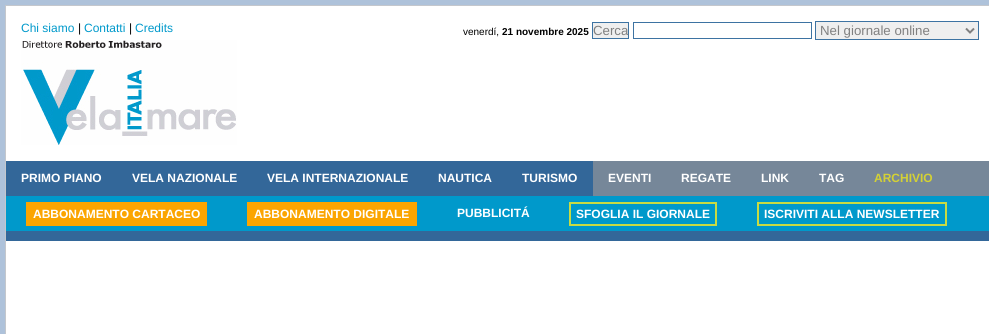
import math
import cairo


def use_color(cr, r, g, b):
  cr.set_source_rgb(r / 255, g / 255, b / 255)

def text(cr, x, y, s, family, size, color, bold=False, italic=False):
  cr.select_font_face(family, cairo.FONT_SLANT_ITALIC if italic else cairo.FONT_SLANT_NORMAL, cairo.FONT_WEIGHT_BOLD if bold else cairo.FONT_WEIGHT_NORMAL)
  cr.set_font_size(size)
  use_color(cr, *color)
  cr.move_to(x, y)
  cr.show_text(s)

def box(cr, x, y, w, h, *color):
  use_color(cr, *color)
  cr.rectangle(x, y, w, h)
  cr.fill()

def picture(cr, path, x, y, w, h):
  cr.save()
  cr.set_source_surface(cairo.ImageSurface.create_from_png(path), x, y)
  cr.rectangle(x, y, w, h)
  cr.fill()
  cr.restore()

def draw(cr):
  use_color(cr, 174, 194, 218)
  cr.paint()
  use_color(cr, 255, 255, 255)
  cr.rectangle(5.5, 5.5, 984, 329)
  cr.fill_preserve()
  use_color(cr, 196, 199, 204)
  cr.set_line_width(1)
  cr.stroke()
  use_color(cr, 239, 239, 239)
  cr.rectangle(592.5, 22.5, 36, 16)
  cr.fill_preserve()
  use_color(cr, 61, 115, 162)
  cr.stroke()
  cr.rectangle(633.5, 22.5, 178, 16)
  cr.stroke()
  use_color(cr, 239, 239, 239)
  cr.rectangle(815.5, 21.5, 163, 18)
  cr.fill_preserve()
  use_color(cr, 61, 115, 162)
  cr.stroke()
  cr.new_path()
  cr.move_to(966, 28.5)
  cr.line_to(970, 32.5)
  cr.line_to(974, 28.5)
  use_color(cr, 128, 128, 128)
  cr.set_line_width(2)
  cr.stroke()
  picture(cr, "img_01.png", 21, 40, 216, 105)
  box(cr, 6, 161, 587, 35, 51, 103, 153)
  box(cr, 948, 161, 41, 35, 118, 135, 153)
  box(cr, 593, 161, 355, 35, 118, 135, 153)
  box(cr, 6, 196, 983, 35, 0, 153, 203)
  box(cr, 6, 231, 983, 10, 51, 103, 153)
  box(cr, 26, 202, 181, 24, 251, 165, 0)
  box(cr, 247, 202, 170, 24, 251, 165, 0)
  cr.rectangle(570, 203, 146, 22)
  use_color(cr, 200, 219, 67)
  cr.stroke()
  cr.rectangle(758, 203, 188, 22)
  cr.stroke()
  text(cr, 21, 32, "Chi siamo", "Liberation Sans", 12, (0, 153, 203))
  text(cr, 78, 32, "|", "Liberation Sans", 12, (0, 0, 0))
  text(cr, 84, 32, "Contatti", "Liberation Sans", 12, (0, 153, 203))
  text(cr, 129, 32, "|", "Liberation Sans", 12, (0, 0, 0))
  text(cr, 135, 32, "Credits", "Liberation Sans", 12, (0, 153, 203))
  text(cr, 463, 35, "venerdí,", "Liberation Sans", 10, (0, 0, 0))
  text(cr, 502, 35, "21 novembre 2025", "Liberation Sans", 10, (0, 0, 0), bold=True)
  text(cr, 593, 35, "Cerca", "Liberation Sans", 13.25, (128, 128, 128))
  text(cr, 820, 35, "Nel giornale online", "Liberation Sans", 13.25, (128, 128, 128))
  text(cr, 21, 182, "PRIMO PIANO", "Liberation Sans", 12, (255, 255, 255), bold=True)
  text(cr, 132, 182, "VELA NAZIONALE", "Liberation Sans", 12, (255, 255, 255), bold=True)
  text(cr, 267, 182, "VELA INTERNAZIONALE", "Liberation Sans", 12, (255, 255, 255), bold=True)
  text(cr, 438, 182, "NAUTICA", "Liberation Sans", 12, (255, 255, 255), bold=True)
  text(cr, 522, 182, "TURISMO", "Liberation Sans", 12, (255, 255, 255), bold=True)
  text(cr, 608, 182, "EVENTI", "Liberation Sans", 12, (255, 255, 255), bold=True)
  text(cr, 681, 182, "REGATE", "Liberation Sans", 12, (255, 255, 255), bold=True)
  text(cr, 761, 182, "LINK", "Liberation Sans", 12, (255, 255, 255), bold=True)
  text(cr, 819, 182, "TAG", "Liberation Sans", 12, (255, 255, 255), bold=True)
  text(cr, 874, 182, "ARCHIVIO", "Liberation Sans", 12, (212, 209, 52), bold=True)
  text(cr, 33, 218, "ABBONAMENTO CARTACEO", "Liberation Sans", 12, (255, 255, 255), bold=True)
  text(cr, 254, 218, "ABBONAMENTO DIGITALE", "Liberation Sans", 12, (255, 255, 255), bold=True)
  text(cr, 457, 217, "PUBBLICITÁ", "Liberation Sans", 12, (255, 255, 255), bold=True)
  text(cr, 576, 218, "SFOGLIA IL GIORNALE", "Liberation Sans", 12, (255, 255, 255), bold=True)
  text(cr, 764, 218, "ISCRIVITI ALLA NEWSLETTER", "Liberation Sans", 12, (255, 255, 255), bold=True)


surface = cairo.ImageSurface(cairo.FORMAT_RGB24, 989, 334)
cr = cairo.Context(surface)
options = cairo.FontOptions()
options.set_hint_metrics(cairo.HINT_METRICS_OFF)
options.set_hint_style(cairo.HINT_STYLE_NONE)
cr.set_font_options(options)
cr.set_miter_limit(4)
draw(cr)
surface.write_to_png("out.png")
